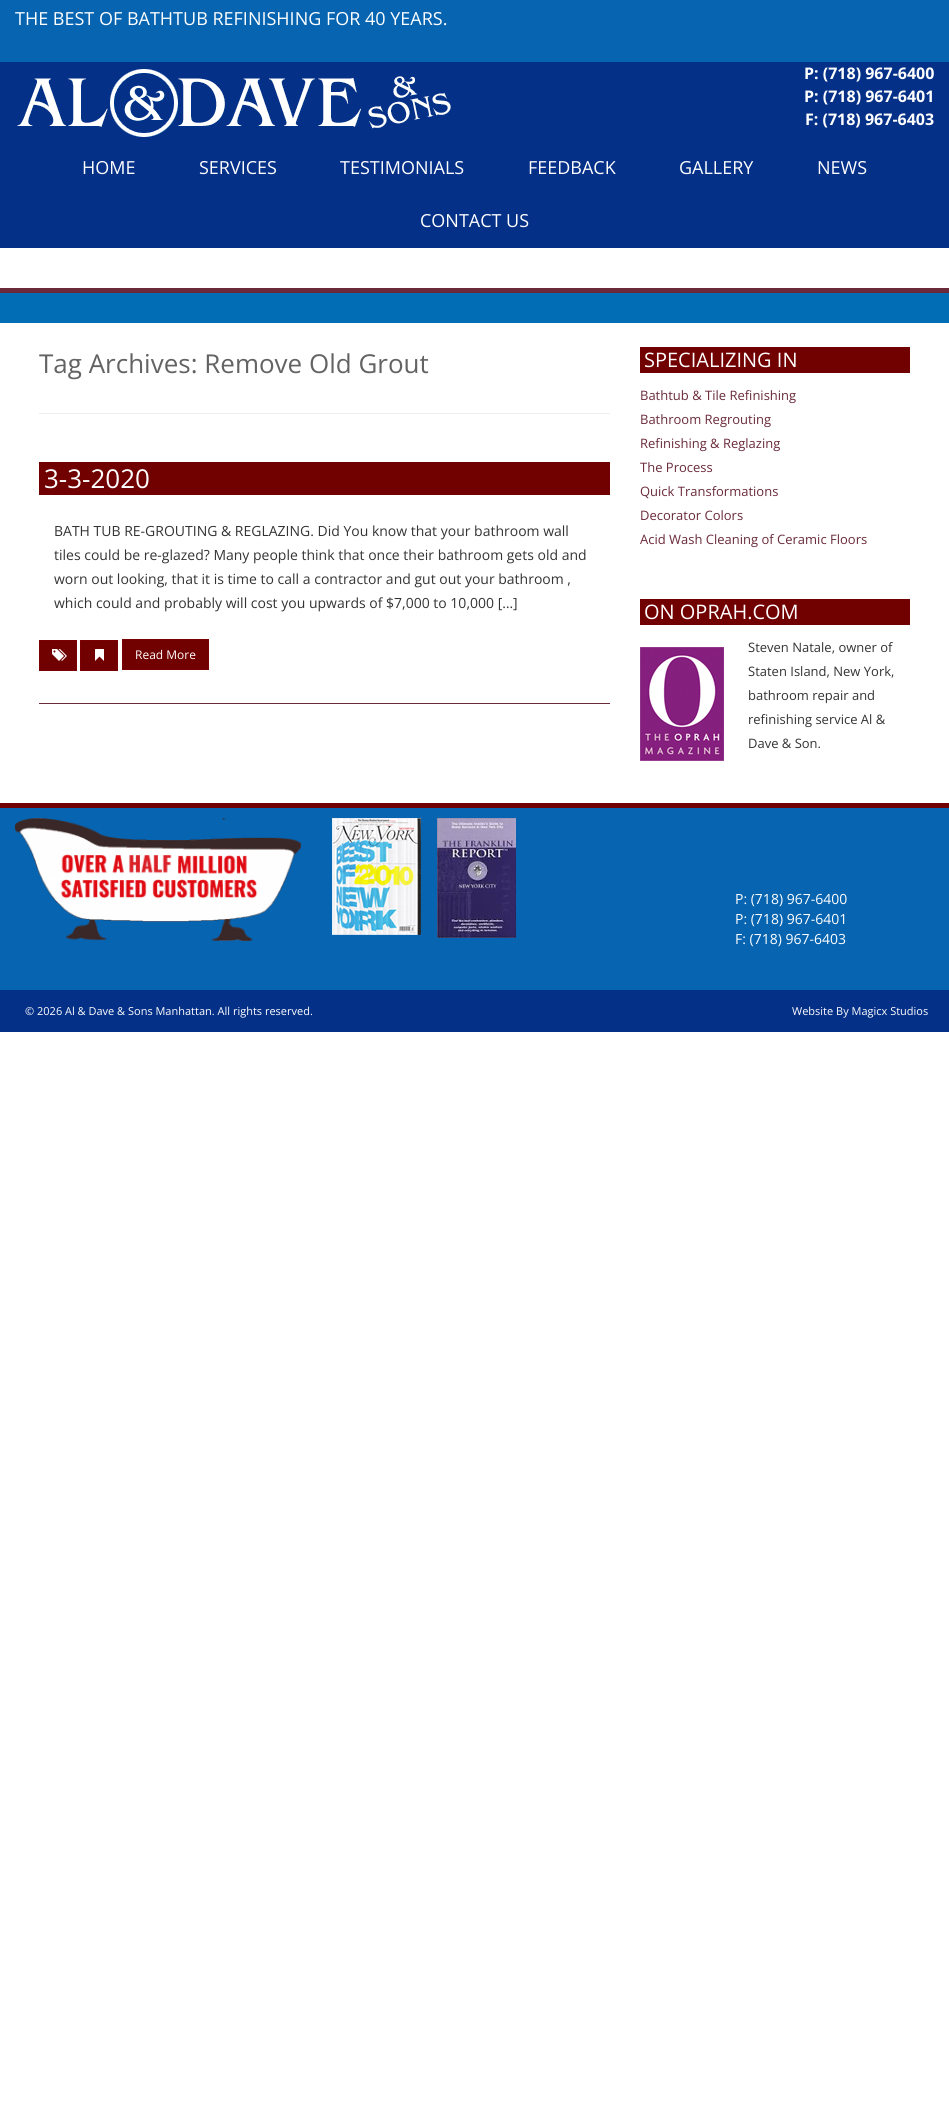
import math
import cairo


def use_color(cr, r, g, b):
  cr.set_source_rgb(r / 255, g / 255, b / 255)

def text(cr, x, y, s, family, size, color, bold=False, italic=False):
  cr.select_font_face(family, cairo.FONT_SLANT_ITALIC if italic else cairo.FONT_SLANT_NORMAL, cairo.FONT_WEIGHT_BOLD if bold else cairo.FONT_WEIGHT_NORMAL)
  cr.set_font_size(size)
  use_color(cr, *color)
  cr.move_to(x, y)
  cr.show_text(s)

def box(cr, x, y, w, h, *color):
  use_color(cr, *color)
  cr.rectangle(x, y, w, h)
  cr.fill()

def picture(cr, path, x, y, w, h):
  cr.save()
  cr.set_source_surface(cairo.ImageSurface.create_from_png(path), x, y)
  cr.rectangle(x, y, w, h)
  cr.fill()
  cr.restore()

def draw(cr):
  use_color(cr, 255, 255, 255)
  cr.paint()
  box(cr, 0, 62, 949, 186, 4, 48, 135)
  box(cr, 0, 0, 949, 62, 7, 100, 177)
  picture(cr, "img_01.png", 17, 69, 434, 68)
  box(cr, 0, 293, 949, 30, 0, 109, 181)
  box(cr, 0, 288, 949, 5, 106, 42, 57)
  box(cr, 39, 413, 571, 1, 237, 237, 237)
  box(cr, 39, 462, 571, 33, 113, 0, 0)
  cr.rectangle(39.5, 640.5, 37, 30)
  cr.fill_preserve()
  use_color(cr, 123, 0, 2)
  cr.set_line_width(1)
  cr.stroke()
  picture(cr, "img_02.png", 52, 649, 15, 12)
  use_color(cr, 113, 0, 0)
  cr.rectangle(80.5, 640.5, 37, 30)
  cr.fill_preserve()
  use_color(cr, 123, 0, 2)
  cr.stroke()
  picture(cr, "img_03.png", 95, 649, 9, 12)
  use_color(cr, 113, 0, 0)
  cr.rectangle(122.5, 639.5, 86, 30)
  cr.fill_preserve()
  use_color(cr, 123, 0, 2)
  cr.stroke()
  box(cr, 39, 703, 571, 1, 106, 42, 57)
  box(cr, 640, 347, 270, 26, 113, 0, 0)
  box(cr, 640, 599, 270, 26, 113, 0, 0)
  picture(cr, "img_04.png", 640, 647, 84, 114)
  box(cr, 0, 990, 949, 42, 4, 48, 135)
  box(cr, 0, 808, 949, 182, 7, 100, 177)
  box(cr, 0, 803, 949, 5, 113, 0, 0)
  picture(cr, "img_05.png", 15, 818, 286, 123)
  picture(cr, "img_06.png", 332, 818, 89, 117)
  picture(cr, "img_07.png", 437, 818, 79, 120)
  text(cr, 15, 25, "THE BEST OF BATHTUB REFINISHING FOR 40 YEARS.", "Open Sans", 18, (255, 255, 255))
  text(cr, 804, 79, "P: (718) 967-6400", "Open Sans", 16, (255, 255, 255), bold=True)
  text(cr, 804, 102, "P: (718) 967-6401", "Open Sans", 16, (255, 255, 255), bold=True)
  text(cr, 805, 125, "F: (718) 967-6403", "Open Sans", 16, (255, 255, 255), bold=True)
  text(cr, 82, 174, "HOME", "Open Sans", 18, (255, 255, 255))
  text(cr, 199, 174, "SERVICES", "Open Sans", 18, (255, 255, 255))
  text(cr, 340, 174, "TESTIMONIALS", "Open Sans", 18, (255, 255, 255))
  text(cr, 528, 174, "FEEDBACK", "Open Sans", 18, (255, 255, 255))
  text(cr, 679, 174, "GALLERY", "Open Sans", 18, (255, 255, 255))
  text(cr, 817, 174, "NEWS", "Open Sans", 18, (255, 255, 255))
  text(cr, 420, 227, "CONTACT US", "Open Sans", 18, (255, 255, 255))
  text(cr, 39, 373, "Tag Archives: Remove Old Grout", "Open Sans", 26, (99, 99, 99))
  text(cr, 44, 488, "3-3-2020", "Open Sans", 26, (255, 255, 255))
  text(cr, 54, 536, "BATH TUB RE-GROUTING & REGLAZING. Did You know that your bathroom wall", "Open Sans", 14, (51, 51, 51))
  text(cr, 54, 560, "tiles could be re-glazed? Many people think that once their bathroom gets old and", "Open Sans", 14, (51, 51, 51))
  text(cr, 54, 584, "worn out looking, that it is time to call a contractor and gut out your bathroom ,", "Open Sans", 14, (51, 51, 51))
  text(cr, 54, 608, "which could and probably will cost you upwards of $7,000 to 10,000 […]", "Open Sans", 14, (51, 51, 51))
  text(cr, 135, 659, "Read More", "Open Sans", 12, (255, 255, 255))
  text(cr, 644, 367, "SPECIALIZING IN", "Open Sans", 20, (255, 255, 255))
  text(cr, 640, 400, "Bathtub & Tile Refinishing", "Open Sans", 13, (106, 42, 57))
  text(cr, 640, 424, "Bathroom Regrouting", "Open Sans", 13, (106, 42, 57))
  text(cr, 640, 448, "Refinishing & Reglazing", "Open Sans", 13, (106, 42, 57))
  text(cr, 640, 472, "The Process", "Open Sans", 13, (106, 42, 57))
  text(cr, 640, 496, "Quick Transformations", "Open Sans", 13, (106, 42, 57))
  text(cr, 640, 520, "Decorator Colors", "Open Sans", 13, (106, 42, 57))
  text(cr, 640, 544, "Acid Wash Cleaning of Ceramic Floors", "Open Sans", 13, (106, 42, 57))
  text(cr, 644, 619, "ON OPRAH.COM", "Open Sans", 20, (255, 255, 255))
  text(cr, 748, 652, "Steven Natale, owner of", "Open Sans", 13, (51, 51, 51))
  text(cr, 748, 676, "Staten Island, New York,", "Open Sans", 13, (51, 51, 51))
  text(cr, 748, 700, "bathroom repair and", "Open Sans", 13, (51, 51, 51))
  text(cr, 748, 724, "refinishing service Al &", "Open Sans", 13, (51, 51, 51))
  text(cr, 748, 748, "Dave & Son.", "Open Sans", 13, (51, 51, 51))
  text(cr, 735, 904, "P: (718) 967-6400", "Open Sans", 14, (255, 255, 255))
  text(cr, 735, 924, "P: (718) 967-6401", "Open Sans", 14, (255, 255, 255))
  text(cr, 735, 944, "F: (718) 967-6403", "Open Sans", 14, (255, 255, 255))
  text(cr, 25, 1015, "© 2026 Al & Dave & Sons Manhattan. All rights reserved.", "Open Sans", 11, (255, 255, 255))
  text(cr, 792, 1015, "Website By Magicx Studios", "Open Sans", 11, (255, 255, 255))


surface = cairo.ImageSurface(cairo.FORMAT_RGB24, 949, 2114)
cr = cairo.Context(surface)
options = cairo.FontOptions()
options.set_hint_metrics(cairo.HINT_METRICS_OFF)
options.set_hint_style(cairo.HINT_STYLE_NONE)
cr.set_font_options(options)
cr.set_miter_limit(4)
draw(cr)
surface.write_to_png("out.png")
